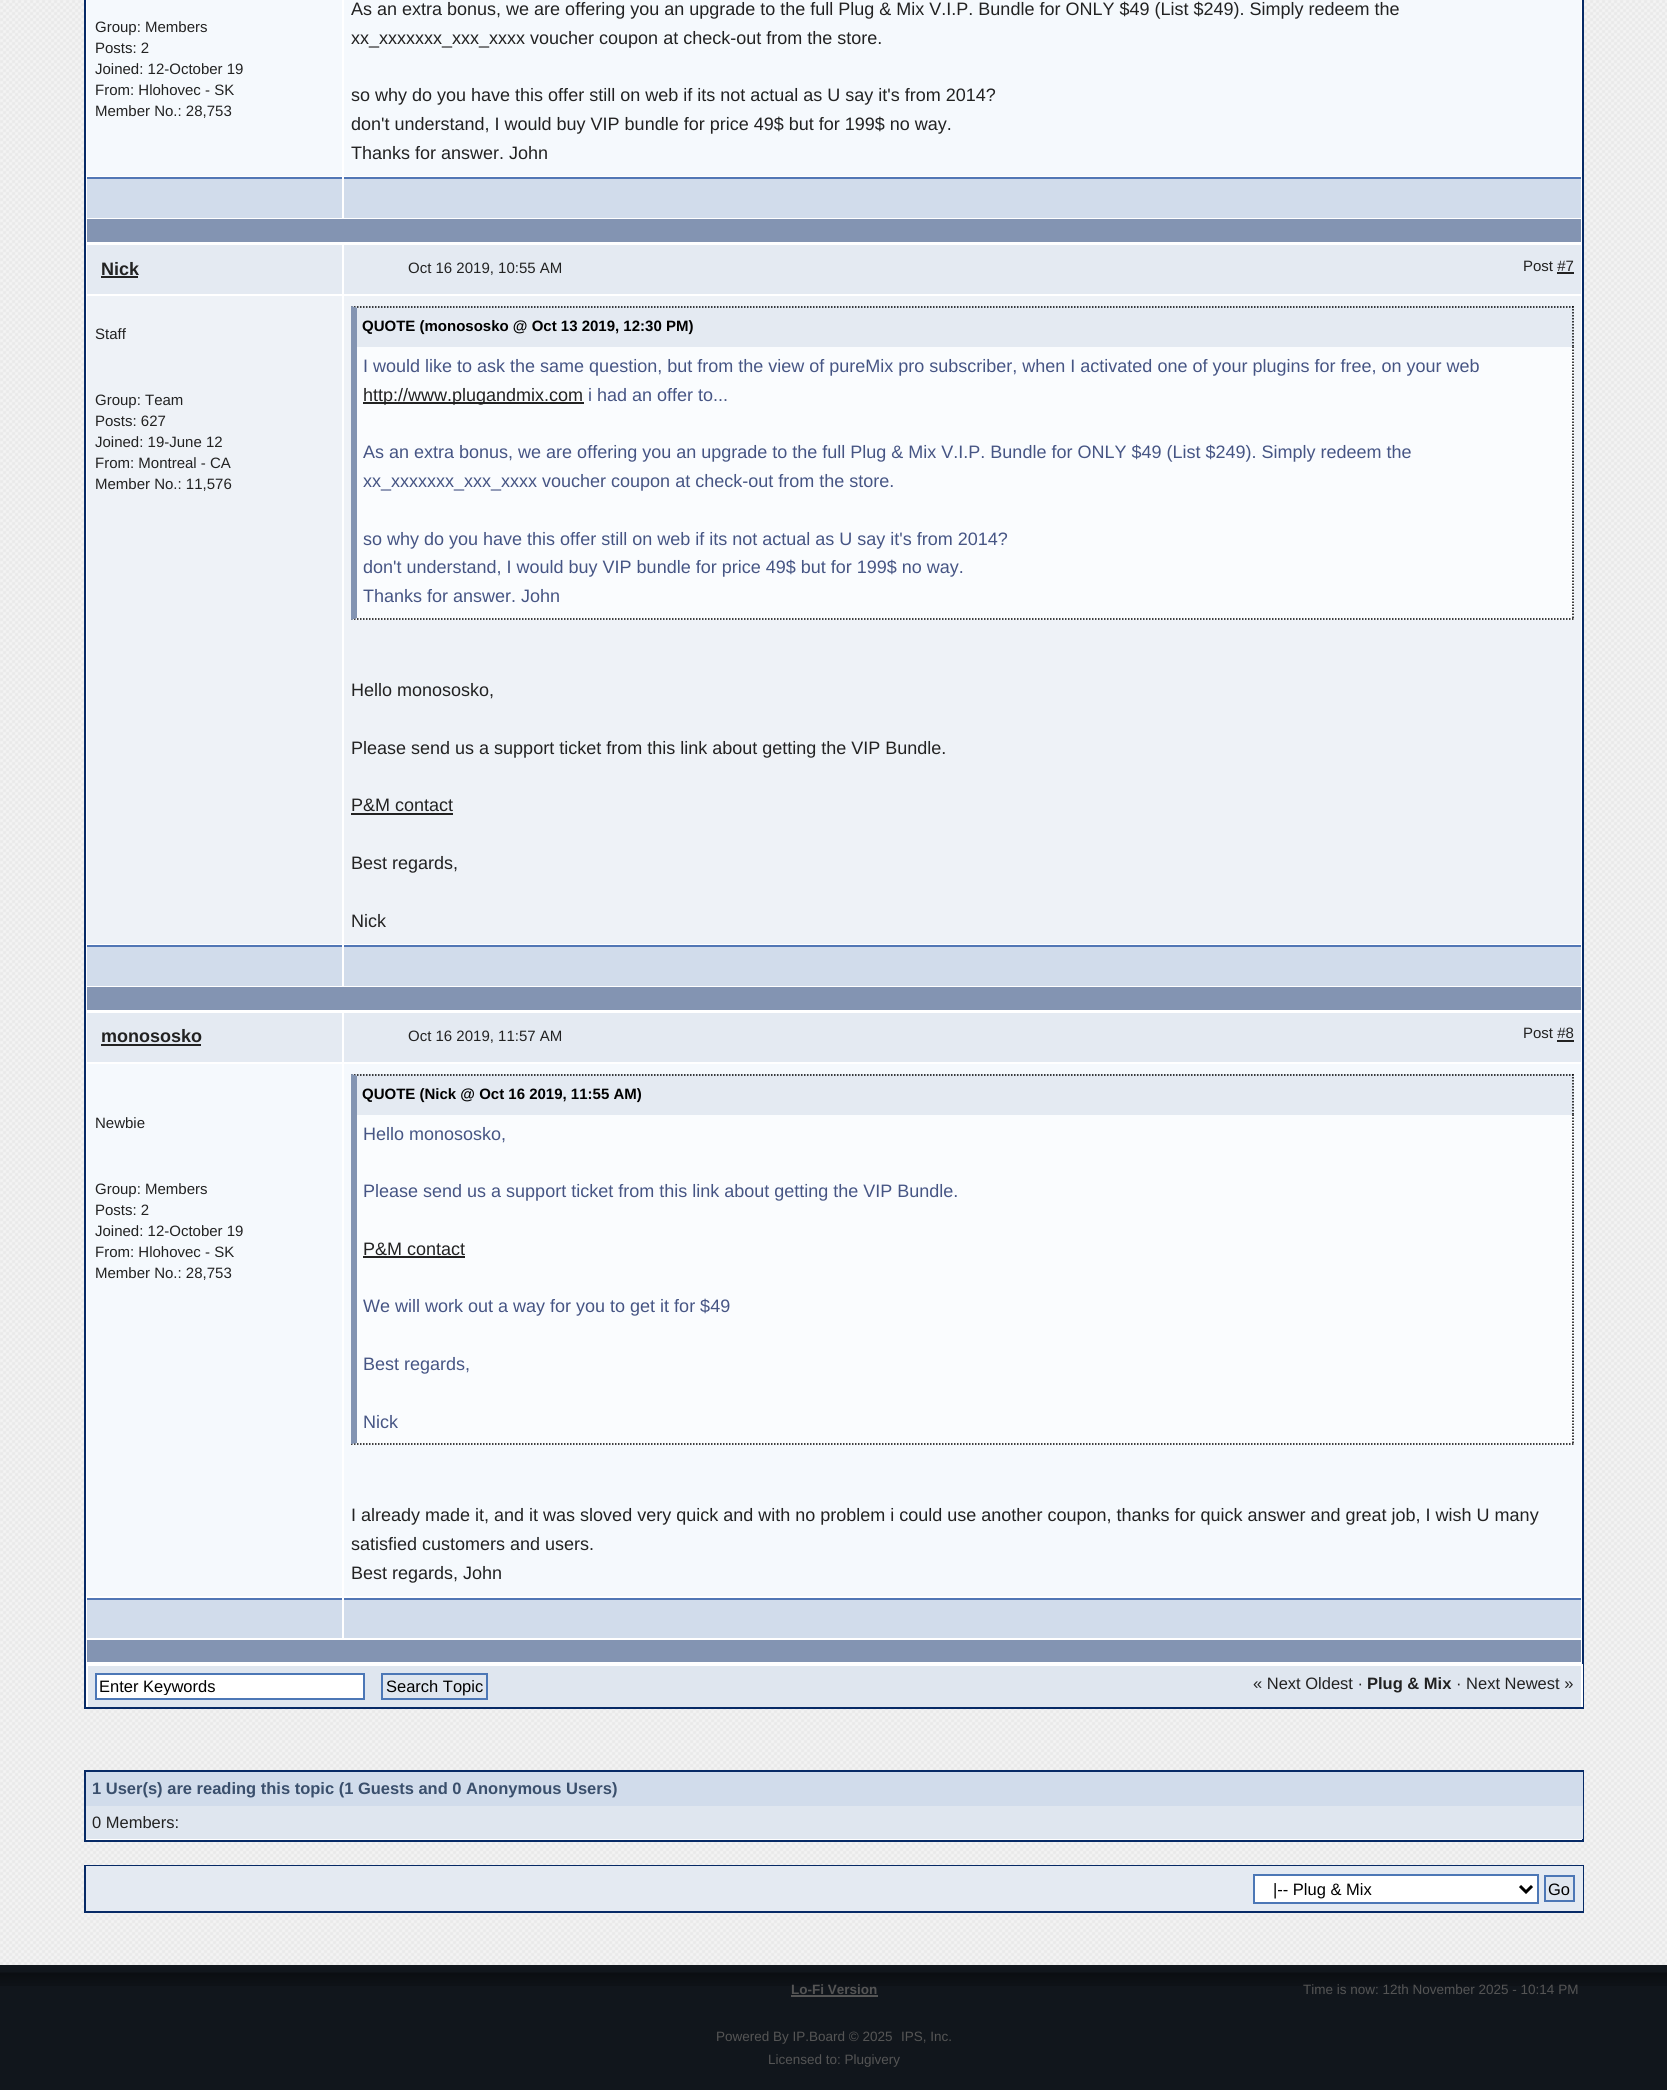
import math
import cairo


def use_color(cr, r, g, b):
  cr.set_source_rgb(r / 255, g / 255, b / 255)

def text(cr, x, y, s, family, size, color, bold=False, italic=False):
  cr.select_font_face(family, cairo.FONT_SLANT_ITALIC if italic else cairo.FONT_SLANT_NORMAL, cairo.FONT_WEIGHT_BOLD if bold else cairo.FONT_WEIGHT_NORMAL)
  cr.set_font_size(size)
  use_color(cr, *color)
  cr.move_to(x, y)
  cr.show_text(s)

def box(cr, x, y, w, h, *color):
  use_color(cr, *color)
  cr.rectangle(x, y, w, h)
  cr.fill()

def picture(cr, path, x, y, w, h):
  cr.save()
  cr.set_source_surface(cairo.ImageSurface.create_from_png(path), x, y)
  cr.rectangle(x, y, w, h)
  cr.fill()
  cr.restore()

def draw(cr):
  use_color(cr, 17, 22, 28)
  cr.paint()
  picture(cr, "img_01.png", 0, 0, 1667, 1965)
  box(cr, 86, 0, 1496, 1664, 255, 255, 255)
  cr.rectangle(85, -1, 1498, 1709)
  use_color(cr, 7, 42, 102)
  cr.stroke()
  box(cr, 87, 0, 255, 176, 245, 249, 253)
  box(cr, 344, 0, 1237, 176, 245, 249, 253)
  box(cr, 87, 179, 255, 39, 209, 220, 235)
  box(cr, 87, 177, 255, 2, 81, 118, 181)
  box(cr, 344, 179, 1237, 39, 209, 220, 235)
  box(cr, 344, 177, 1237, 2, 81, 118, 181)
  box(cr, 87, 219, 1494, 23, 131, 148, 178)
  box(cr, 87, 245, 255, 49, 228, 234, 242)
  box(cr, 101, 276, 37, 2, 34, 34, 34)
  box(cr, 344, 245, 1237, 49, 228, 234, 242)
  box(cr, 1557, 272, 17, 2, 34, 34, 34)
  box(cr, 87, 296, 255, 648, 238, 242, 247)
  box(cr, 344, 296, 1237, 648, 238, 242, 247)
  box(cr, 351, 306, 1223, 41, 228, 234, 242)
  cr.new_path()
  cr.move_to(351, 307)
  cr.line_to(1573.5, 307)
  use_color(cr, 0, 0, 0)
  cr.set_line_width(1.5)
  cr.set_dash([1.5, 1.5])
  cr.stroke()
  cr.new_path()
  cr.move_to(1573, 306)
  cr.line_to(1573, 346.5)
  cr.stroke()
  use_color(cr, 131, 148, 178)
  cr.new_path()
  cr.move_to(351, 346)
  cr.line_to(351, 306)
  cr.line_to(357, 308)
  cr.line_to(357, 346)
  cr.close_path()
  cr.fill()
  box(cr, 351, 347, 1223, 273, 250, 252, 254)
  cr.new_path()
  cr.move_to(1573, 346.5)
  cr.line_to(1573, 619.5)
  use_color(cr, 0, 0, 0)
  cr.stroke()
  cr.new_path()
  cr.move_to(351, 619)
  cr.line_to(1573.5, 619)
  cr.stroke()
  use_color(cr, 131, 148, 178)
  cr.new_path()
  cr.move_to(351, 620)
  cr.line_to(351, 346)
  cr.line_to(357, 346)
  cr.line_to(357, 618)
  cr.close_path()
  cr.fill()
  box(cr, 363, 402, 221, 2, 34, 34, 34)
  box(cr, 351, 813, 102, 2, 34, 34, 34)
  box(cr, 87, 947, 255, 39, 209, 220, 235)
  box(cr, 87, 945, 255, 2, 81, 118, 181)
  box(cr, 344, 947, 1237, 39, 209, 220, 235)
  box(cr, 344, 945, 1237, 2, 81, 118, 181)
  box(cr, 87, 987, 1494, 23, 131, 148, 178)
  box(cr, 87, 1013, 255, 49, 228, 234, 242)
  box(cr, 101, 1044, 100, 2, 34, 34, 34)
  box(cr, 344, 1013, 1237, 49, 228, 234, 242)
  box(cr, 1557, 1040, 17, 2, 34, 34, 34)
  box(cr, 87, 1064, 255, 532, 245, 249, 253)
  box(cr, 344, 1064, 1237, 532, 245, 249, 253)
  box(cr, 351, 1074, 1223, 41, 228, 234, 242)
  cr.new_path()
  cr.move_to(351, 1075)
  cr.line_to(1573.5, 1075)
  use_color(cr, 0, 0, 0)
  cr.stroke()
  cr.new_path()
  cr.move_to(1573, 1074)
  cr.line_to(1573, 1114.5)
  cr.stroke()
  use_color(cr, 131, 148, 178)
  cr.new_path()
  cr.move_to(351, 1114)
  cr.line_to(351, 1074)
  cr.line_to(357, 1076)
  cr.line_to(357, 1114)
  cr.close_path()
  cr.fill()
  box(cr, 351, 1115, 1223, 330, 250, 252, 254)
  cr.new_path()
  cr.move_to(1573, 1114.5)
  cr.line_to(1573, 1444.5)
  use_color(cr, 0, 0, 0)
  cr.stroke()
  cr.new_path()
  cr.move_to(351, 1444)
  cr.line_to(1573.5, 1444)
  cr.stroke()
  use_color(cr, 131, 148, 178)
  cr.new_path()
  cr.move_to(351, 1444)
  cr.line_to(351, 1114)
  cr.line_to(357, 1114)
  cr.line_to(357, 1443)
  cr.close_path()
  cr.fill()
  box(cr, 363, 1256, 102, 2, 34, 34, 34)
  box(cr, 87, 1600, 255, 38, 209, 220, 235)
  box(cr, 87, 1598, 255, 2, 81, 118, 181)
  box(cr, 344, 1600, 1237, 38, 209, 220, 235)
  box(cr, 344, 1598, 1237, 2, 81, 118, 181)
  box(cr, 87, 1640, 1494, 22, 131, 148, 178)
  box(cr, 88, 1666, 1493, 41, 223, 230, 239)
  box(cr, 86, 1664, 1497, 2, 255, 255, 255)
  box(cr, 1581, 1664, 2, 43, 255, 255, 255)
  box(cr, 86, 1664, 2, 43, 255, 255, 255)
  cr.rectangle(96, 1674, 268, 25)
  cr.fill_preserve()
  use_color(cr, 76, 119, 182)
  cr.set_line_width(2)
  cr.set_dash([])
  cr.stroke()
  cr.rectangle(382, 1674, 105, 25)
  cr.stroke()
  box(cr, 86, 1839, 1496, 1, 255, 255, 255)
  cr.rectangle(85, 1771, 1498, 70)
  use_color(cr, 7, 42, 102)
  cr.stroke()
  box(cr, 86, 1772, 1497, 34, 209, 220, 235)
  box(cr, 86, 1806, 1497, 33, 223, 230, 239)
  cr.rectangle(85, 1866, 1498, 46)
  use_color(cr, 7, 42, 102)
  cr.stroke()
  box(cr, 86, 1866, 1497, 45, 228, 234, 242)
  use_color(cr, 255, 255, 255)
  cr.rectangle(1254, 1875, 284, 28)
  cr.fill_preserve()
  use_color(cr, 76, 119, 182)
  cr.stroke()
  cr.new_path()
  cr.move_to(1520, 1886)
  cr.line_to(1526, 1892)
  cr.line_to(1532, 1886)
  use_color(cr, 0, 0, 0)
  cr.set_line_width(3)
  cr.stroke()
  use_color(cr, 223, 230, 239)
  cr.rectangle(1545, 1876, 29, 25)
  cr.fill_preserve()
  use_color(cr, 76, 119, 182)
  cr.set_line_width(2)
  cr.stroke()
  picture(cr, "img_02.png", 0, 1972, 1667, 14)
  box(cr, 791, 1995, 87, 2, 85, 85, 85)
  text(cr, 95, 32, "Group: Members", "Liberation Sans", 15, (34, 34, 34))
  text(cr, 95, 53, "Posts: 2", "Liberation Sans", 15, (34, 34, 34))
  text(cr, 95, 74, "Joined: 12-October 19", "Liberation Sans", 15, (34, 34, 34))
  text(cr, 95, 95, "From: Hlohovec - SK", "Liberation Sans", 15, (34, 34, 34))
  text(cr, 95, 116, "Member No.: 28,753", "Liberation Sans", 15, (34, 34, 34))
  text(cr, 351, 15, "As an extra bonus, we are offering you an upgrade to the full Plug & Mix V.I.P. Bundle for ONLY $49 (List $249). Simply redeem the", "Liberation Sans", 18, (34, 34, 34))
  text(cr, 351, 44, "xx_xxxxxxx_xxx_xxxx voucher coupon at check-out from the store.", "Liberation Sans", 18, (34, 34, 34))
  text(cr, 351, 101, "so why do you have this offer still on web if its not actual as U say it's from 2014?", "Liberation Sans", 18, (34, 34, 34))
  text(cr, 351, 130, "don't understand, I would buy VIP bundle for price 49$ but for 199$ no way.", "Liberation Sans", 18, (34, 34, 34))
  text(cr, 351, 159, "Thanks for answer. John", "Liberation Sans", 18, (34, 34, 34))
  text(cr, 101, 275, "Nick", "Liberation Sans", 18, (34, 34, 34), bold=True)
  text(cr, 408, 273, "Oct 16 2019, 10:55 AM", "Liberation Sans", 15, (34, 34, 34))
  text(cr, 1523, 271, "Post #7", "Liberation Sans", 15, (34, 34, 34))
  text(cr, 95, 339, "Staff", "Liberation Sans", 15, (34, 34, 34))
  text(cr, 95, 405, "Group: Team", "Liberation Sans", 15, (34, 34, 34))
  text(cr, 95, 426, "Posts: 627", "Liberation Sans", 15, (34, 34, 34))
  text(cr, 95, 447, "Joined: 19-June 12", "Liberation Sans", 15, (34, 34, 34))
  text(cr, 95, 468, "From: Montreal - CA", "Liberation Sans", 15, (34, 34, 34))
  text(cr, 95, 489, "Member No.: 11,576", "Liberation Sans", 15, (34, 34, 34))
  text(cr, 362, 331, "QUOTE (monososko @ Oct 13 2019, 12:30 PM)", "Liberation Sans", 15, (0, 0, 0), bold=True)
  text(cr, 363, 372, "I would like to ask the same question, but from the view of pureMix pro subscriber, when I activated one of your plugins for free, on your web", "Liberation Sans", 18, (70, 85, 132))
  text(cr, 363, 401, "http://www.plugandmix.com", "Liberation Sans", 18, (34, 34, 34))
  text(cr, 588, 401, "i had an offer to...", "Liberation Sans", 18, (70, 85, 132))
  text(cr, 363, 458, "As an extra bonus, we are offering you an upgrade to the full Plug & Mix V.I.P. Bundle for ONLY $49 (List $249). Simply redeem the", "Liberation Sans", 18, (70, 85, 132))
  text(cr, 363, 487, "xx_xxxxxxx_xxx_xxxx voucher coupon at check-out from the store.", "Liberation Sans", 18, (70, 85, 132))
  text(cr, 363, 545, "so why do you have this offer still on web if its not actual as U say it's from 2014?", "Liberation Sans", 18, (70, 85, 132))
  text(cr, 363, 573, "don't understand, I would buy VIP bundle for price 49$ but for 199$ no way.", "Liberation Sans", 18, (70, 85, 132))
  text(cr, 363, 602, "Thanks for answer. John", "Liberation Sans", 18, (70, 85, 132))
  text(cr, 351, 696, "Hello monososko,", "Liberation Sans", 18, (34, 34, 34))
  text(cr, 351, 754, "Please send us a support ticket from this link about getting the VIP Bundle.", "Liberation Sans", 18, (34, 34, 34))
  text(cr, 351, 811, "P&M contact", "Liberation Sans", 18, (34, 34, 34))
  text(cr, 351, 869, "Best regards,", "Liberation Sans", 18, (34, 34, 34))
  text(cr, 351, 927, "Nick", "Liberation Sans", 18, (34, 34, 34))
  text(cr, 101, 1042, "monososko", "Liberation Sans", 18, (34, 34, 34), bold=True)
  text(cr, 408, 1041, "Oct 16 2019, 11:57 AM", "Liberation Sans", 15, (34, 34, 34))
  text(cr, 1523, 1038, "Post #8", "Liberation Sans", 15, (34, 34, 34))
  text(cr, 95, 1128, "Newbie", "Liberation Sans", 15, (34, 34, 34))
  text(cr, 95, 1194, "Group: Members", "Liberation Sans", 15, (34, 34, 34))
  text(cr, 95, 1215, "Posts: 2", "Liberation Sans", 15, (34, 34, 34))
  text(cr, 95, 1236, "Joined: 12-October 19", "Liberation Sans", 15, (34, 34, 34))
  text(cr, 95, 1257, "From: Hlohovec - SK", "Liberation Sans", 15, (34, 34, 34))
  text(cr, 95, 1278, "Member No.: 28,753", "Liberation Sans", 15, (34, 34, 34))
  text(cr, 362, 1099, "QUOTE (Nick @ Oct 16 2019, 11:55 AM)", "Liberation Sans", 15, (0, 0, 0), bold=True)
  text(cr, 363, 1140, "Hello monososko,", "Liberation Sans", 18, (70, 85, 132))
  text(cr, 363, 1197, "Please send us a support ticket from this link about getting the VIP Bundle.", "Liberation Sans", 18, (70, 85, 132))
  text(cr, 363, 1255, "P&M contact", "Liberation Sans", 18, (34, 34, 34))
  text(cr, 363, 1312, "We will work out a way for you to get it for $49", "Liberation Sans", 18, (70, 85, 132))
  text(cr, 363, 1370, "Best regards,", "Liberation Sans", 18, (70, 85, 132))
  text(cr, 363, 1428, "Nick", "Liberation Sans", 18, (70, 85, 132))
  text(cr, 351, 1521, "I already made it, and it was sloved very quick and with no problem i could use another coupon, thanks for quick answer and great job, I wish U many", "Liberation Sans", 18, (34, 34, 34))
  text(cr, 351, 1550, "satisfied customers and users.", "Liberation Sans", 18, (34, 34, 34))
  text(cr, 351, 1579, "Best regards, John", "Liberation Sans", 18, (34, 34, 34))
  cr.save()
  cr.rectangle(99, 1677, 261, 18)
  cr.clip()
  text(cr, 99, 1692, "Enter Keywords", "Liberation Sans", 16.5, (0, 0, 0))
  cr.restore()
  text(cr, 386, 1692, "Search Topic", "Liberation Sans", 16.5, (0, 0, 0))
  text(cr, 1253, 1689, "« Next Oldest ·", "Liberation Sans", 16.5, (34, 34, 34))
  text(cr, 1367, 1689, "Plug & Mix", "Liberation Sans", 16.5, (34, 34, 34), bold=True)
  text(cr, 1456, 1689, "· Next Newest »", "Liberation Sans", 16.5, (34, 34, 34))
  text(cr, 92, 1794, "1 User(s) are reading this topic (1 Guests and 0 Anonymous Users)", "Liberation Sans", 16.5, (58, 79, 108), bold=True)
  text(cr, 92, 1828, "0 Members:", "Liberation Sans", 16.5, (34, 34, 34))
  text(cr, 1273, 1895, "|-- Plug & Mix", "Liberation Sans", 16.5, (0, 0, 0))
  text(cr, 1548, 1895, "Go", "Liberation Sans", 16.5, (0, 0, 0))
  text(cr, 791, 1994, "Lo-Fi Version", "Liberation Sans", 13.5, (85, 85, 85), bold=True)
  text(cr, 1303, 1994, "Time is now: 12th November 2025 - 10:14 PM", "Liberation Sans", 13.5, (85, 85, 85))
  text(cr, 716, 2041, "Powered By IP.Board © 2025", "Liberation Sans", 13.5, (85, 85, 85))
  text(cr, 901, 2041, "IPS, Inc.", "Liberation Sans", 13.5, (85, 85, 85))
  text(cr, 768, 2064, "Licensed to: Plugivery", "Liberation Sans", 13.5, (85, 85, 85))


surface = cairo.ImageSurface(cairo.FORMAT_RGB24, 1667, 2090)
cr = cairo.Context(surface)
options = cairo.FontOptions()
options.set_hint_metrics(cairo.HINT_METRICS_OFF)
options.set_hint_style(cairo.HINT_STYLE_NONE)
cr.set_font_options(options)
cr.set_miter_limit(4)
draw(cr)
surface.write_to_png("out.png")
